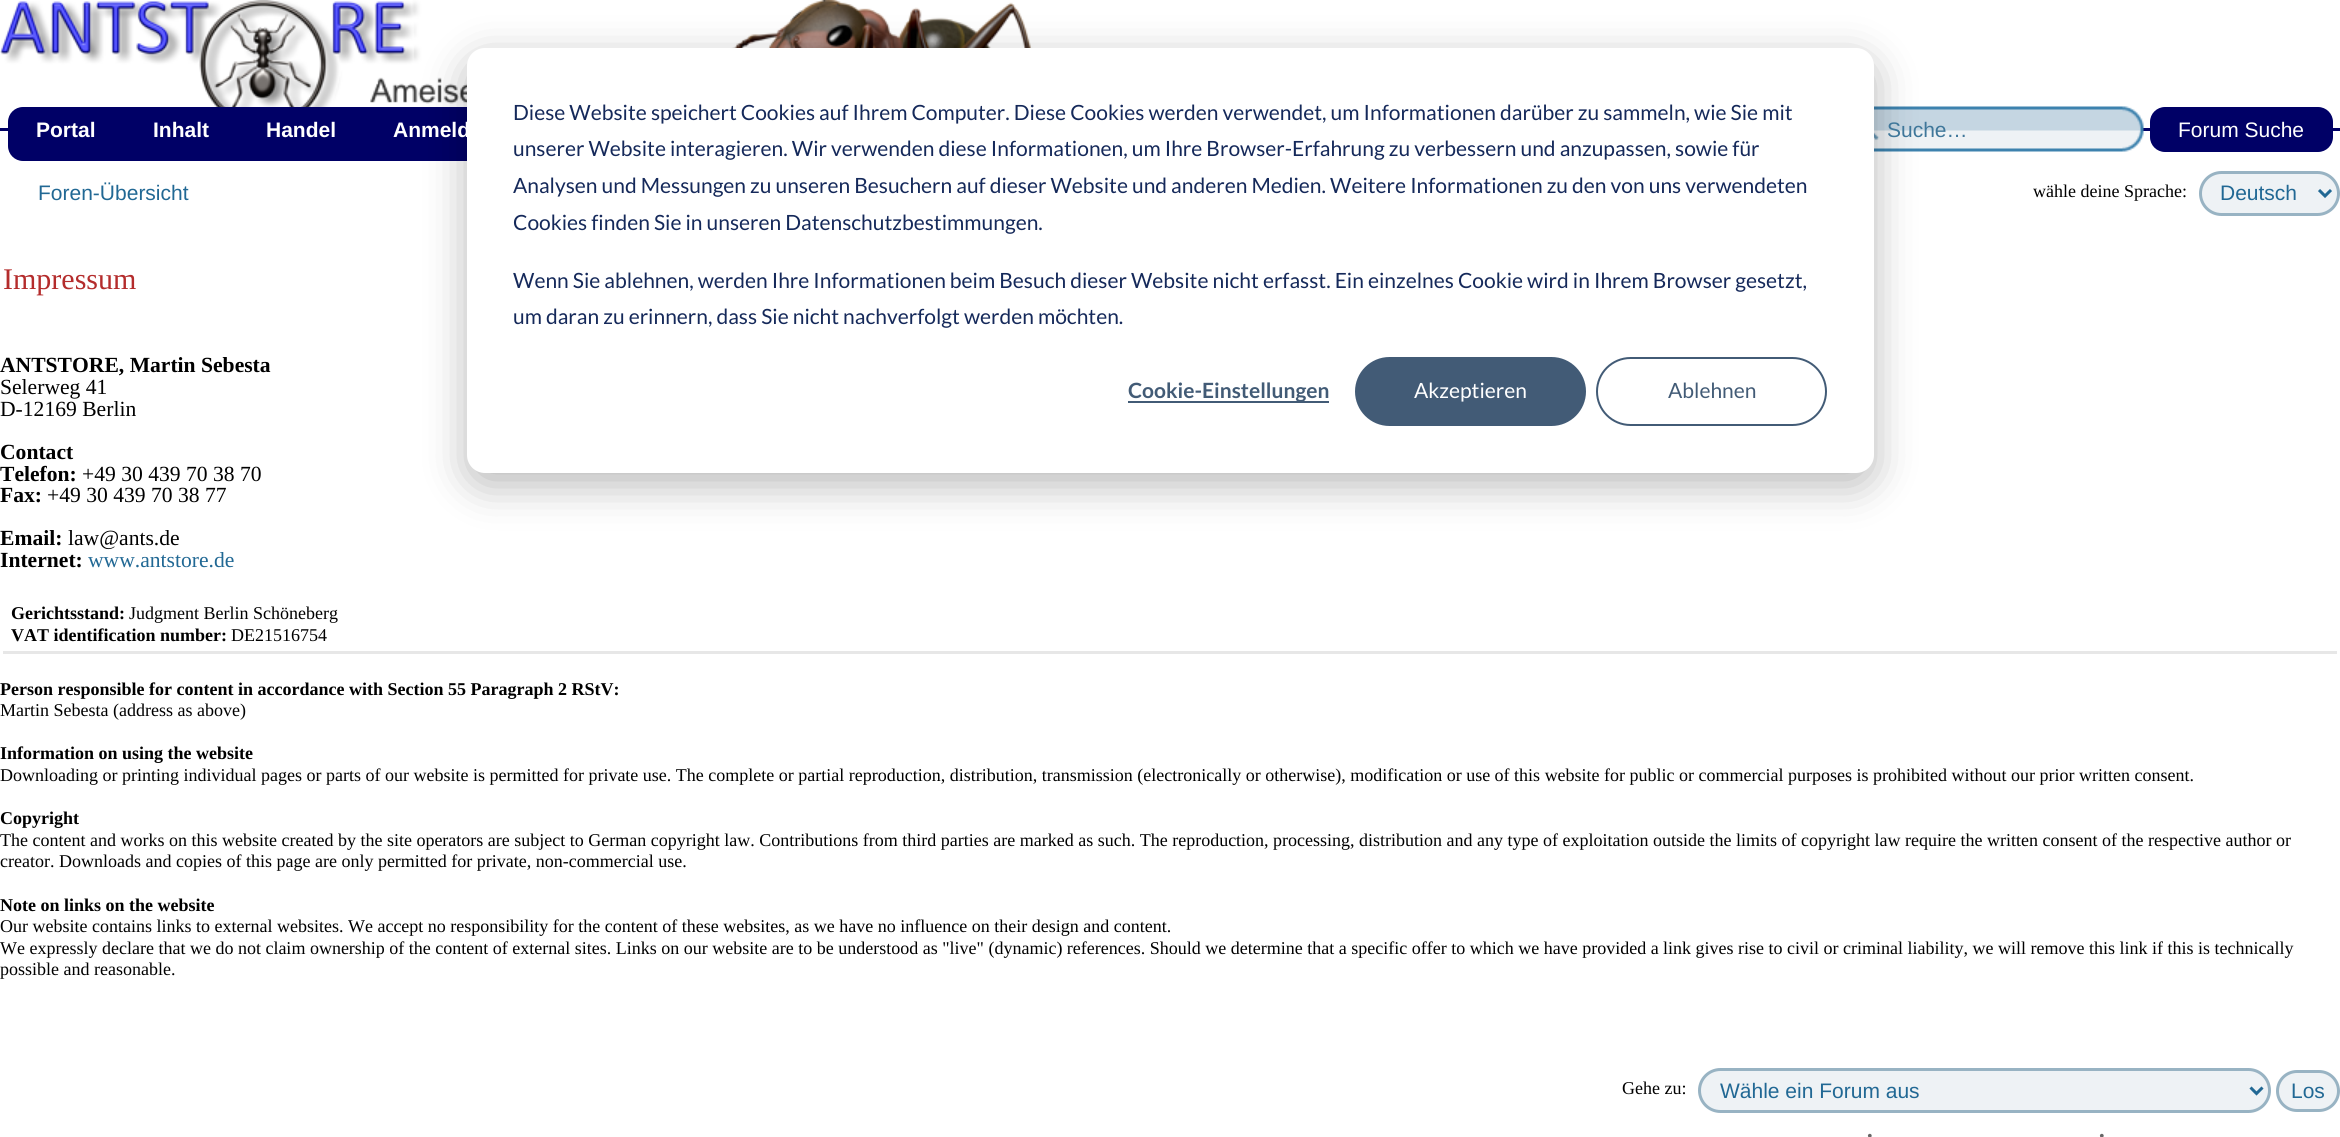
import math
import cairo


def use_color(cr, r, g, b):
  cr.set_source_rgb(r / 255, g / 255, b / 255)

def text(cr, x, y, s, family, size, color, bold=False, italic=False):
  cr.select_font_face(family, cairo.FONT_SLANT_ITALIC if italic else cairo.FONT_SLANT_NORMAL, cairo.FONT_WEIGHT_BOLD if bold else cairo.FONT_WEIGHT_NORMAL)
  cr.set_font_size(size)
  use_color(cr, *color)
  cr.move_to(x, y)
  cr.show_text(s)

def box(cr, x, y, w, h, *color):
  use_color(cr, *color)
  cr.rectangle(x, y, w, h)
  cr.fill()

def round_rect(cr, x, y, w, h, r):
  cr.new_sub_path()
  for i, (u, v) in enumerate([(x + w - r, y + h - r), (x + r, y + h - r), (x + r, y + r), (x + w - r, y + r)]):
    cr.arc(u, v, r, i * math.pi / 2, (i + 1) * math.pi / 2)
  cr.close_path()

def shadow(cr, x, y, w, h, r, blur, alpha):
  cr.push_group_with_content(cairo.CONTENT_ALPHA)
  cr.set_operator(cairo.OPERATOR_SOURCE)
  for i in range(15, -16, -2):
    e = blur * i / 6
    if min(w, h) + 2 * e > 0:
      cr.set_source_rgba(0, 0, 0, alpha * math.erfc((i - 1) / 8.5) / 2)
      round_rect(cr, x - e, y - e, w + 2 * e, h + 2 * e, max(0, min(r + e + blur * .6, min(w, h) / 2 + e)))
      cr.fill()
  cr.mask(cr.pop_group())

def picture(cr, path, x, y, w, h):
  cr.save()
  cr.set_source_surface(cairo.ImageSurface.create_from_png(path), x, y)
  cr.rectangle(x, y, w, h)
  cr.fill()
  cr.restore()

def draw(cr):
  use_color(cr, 255, 255, 255)
  cr.paint()
  picture(cr, "img_01.png", 0, 0, 1103, 128)
  box(cr, 0, 128, 2340, 3, 0, 0, 102)
  round_rect(cr, 8, 107, 514, 54, 15)
  cr.fill()
  picture(cr, "img_02.png", 1874, 106, 270, 46)
  use_color(cr, 0, 0, 0)
  shadow(cr, 467, 60, 1407, 425, 18, 21, 0.28)
  use_color(cr, 255, 255, 255)
  round_rect(cr, 467, 48, 1407, 425, 18)
  cr.fill()
  box(cr, 1128, 401, 201, 2, 66, 91, 118)
  round_rect(cr, 1356, 358, 229, 67, 33.5)
  cr.fill_preserve()
  cr.stroke()
  round_rect(cr, 1597, 358, 229, 67, 33.5)
  cr.stroke()
  use_color(cr, 0, 0, 102)
  round_rect(cr, 2150, 107, 183, 45, 15)
  cr.fill()
  use_color(cr, 238, 242, 245)
  round_rect(cr, 2200.5, 172.5, 138, 42, 21)
  cr.fill_preserve()
  use_color(cr, 152, 179, 195)
  cr.set_line_width(3)
  cr.stroke()
  cr.new_path()
  cr.move_to(2319, 190)
  cr.line_to(2325, 196)
  cr.line_to(2331, 190)
  use_color(cr, 33, 104, 148)
  cr.stroke()
  box(cr, 3, 651, 2334, 3, 231, 231, 231)
  use_color(cr, 238, 242, 245)
  round_rect(cr, 1699.5, 1069.5, 570, 42, 21)
  cr.fill_preserve()
  use_color(cr, 152, 179, 195)
  cr.stroke()
  cr.new_path()
  cr.move_to(2250.5, 1087.5)
  cr.line_to(2256.5, 1093.5)
  cr.line_to(2262.5, 1087.5)
  use_color(cr, 33, 104, 148)
  cr.stroke()
  use_color(cr, 238, 242, 245)
  round_rect(cr, 2277.5, 1071.5, 61, 39, 19.5)
  cr.fill_preserve()
  use_color(cr, 152, 179, 195)
  cr.stroke()
  text(cr, 513, 120, "Diese Website speichert Cookies auf Ihrem Computer. Diese Cookies werden verwendet, um Informationen darüber zu sammeln, wie Sie mit", "Lato", 21, (21, 41, 90))
  text(cr, 513, 156, "unserer Website interagieren. Wir verwenden diese Informationen, um Ihre Browser-Erfahrung zu verbessern und anzupassen, sowie für", "Lato", 21, (21, 41, 90))
  text(cr, 513, 193, "Analysen und Messungen zu unseren Besuchern auf dieser Website und anderen Medien. Weitere Informationen zu den von uns verwendeten", "Lato", 21, (21, 41, 90))
  text(cr, 513, 230, "Cookies finden Sie in unseren Datenschutzbestimmungen.", "Lato", 21, (21, 41, 90))
  text(cr, 513, 288, "Wenn Sie ablehnen, werden Ihre Informationen beim Besuch dieser Website nicht erfasst. Ein einzelnes Cookie wird in Ihrem Browser gesetzt,", "Lato", 21, (21, 41, 90))
  text(cr, 513, 324, "um daran zu erinnern, dass Sie nicht nachverfolgt werden möchten.", "Lato", 21, (21, 41, 90))
  text(cr, 1128, 398, "Cookie-Einstellungen", "Lato", 21, (66, 91, 118), bold=True)
  text(cr, 1414, 398, "Akzeptieren", "Lato", 21, (255, 255, 255))
  text(cr, 1668, 398, "Ablehnen", "Lato", 21, (66, 91, 118))
  text(cr, 36, 137, "Portal", "Liberation Sans", 21, (255, 255, 255), bold=True)
  text(cr, 153, 137, "Inhalt", "Liberation Sans", 21, (255, 255, 255), bold=True)
  text(cr, 266, 137, "Handel", "Liberation Sans", 21, (255, 255, 255), bold=True)
  text(cr, 393, 137, "Anmeld", "Liberation Sans", 21, (255, 255, 255), bold=True)
  text(cr, 1887, 137, "Suche…", "Liberation Sans", 21, (63, 119, 154))
  text(cr, 2178, 137, "Forum Suche", "Liberation Sans", 21, (255, 255, 255))
  text(cr, 38, 200, "Foren-Übersicht", "Liberation Sans", 21, (33, 104, 148))
  text(cr, 2033, 197, "wähle deine Sprache:", "Liberation Serif", 18, (0, 0, 0))
  text(cr, 2220, 200, "Deutsch", "Liberation Sans", 21, (33, 104, 148))
  text(cr, 3, 289, "Impressum", "Liberation Serif", 30, (180, 44, 44))
  text(cr, 0, 372, "ANTSTORE, Martin Sebesta", "Liberation Serif", 21.6, (0, 0, 0), bold=True)
  text(cr, 0, 394, "Selerweg 41", "Liberation Serif", 21.6, (0, 0, 0))
  text(cr, 0, 416, "D-12169 Berlin", "Liberation Serif", 21.6, (0, 0, 0))
  text(cr, 0, 459, "Contact", "Liberation Serif", 21.6, (0, 0, 0), bold=True)
  text(cr, 0, 481, "Telefon:", "Liberation Serif", 21.6, (0, 0, 0), bold=True)
  text(cr, 82, 481, "+49 30 439 70 38 70", "Liberation Serif", 21.6, (0, 0, 0))
  text(cr, 0, 502, "Fax:", "Liberation Serif", 21.6, (0, 0, 0), bold=True)
  text(cr, 47, 502, "+49 30 439 70 38 77", "Liberation Serif", 21.6, (0, 0, 0))
  text(cr, 0, 545, "Email:", "Liberation Serif", 21.6, (0, 0, 0), bold=True)
  text(cr, 68, 545, "law@ants.de", "Liberation Serif", 21.6, (0, 0, 0))
  text(cr, 0, 567, "Internet:", "Liberation Serif", 21.6, (0, 0, 0), bold=True)
  text(cr, 88, 567, "www.antstore.de", "Liberation Serif", 21.6, (33, 104, 148))
  text(cr, 11, 619, "Gerichtsstand:", "Liberation Serif", 18, (0, 0, 0), bold=True)
  text(cr, 129, 619, "Judgment Berlin Schöneberg", "Liberation Serif", 18, (0, 0, 0))
  text(cr, 11, 641, "VAT identification number:", "Liberation Serif", 18, (0, 0, 0), bold=True)
  text(cr, 231, 641, "DE21516754", "Liberation Serif", 18, (0, 0, 0))
  text(cr, 0, 695, "Person responsible for content in accordance with Section 55 Paragraph 2 RStV:", "Liberation Serif", 18, (0, 0, 0), bold=True)
  text(cr, 0, 716, "Martin Sebesta (address as above)", "Liberation Serif", 18, (0, 0, 0))
  text(cr, 0, 759, "Information on using the website", "Liberation Serif", 18, (0, 0, 0), bold=True)
  text(cr, 0, 781, "Downloading or printing individual pages or parts of our website is permitted for private use. The complete or partial reproduction, distribution, transmission (electronically or otherwise), modification or use of this website for public or commercial purposes is prohibited without our prior written consent.", "Liberation Serif", 18, (0, 0, 0))
  text(cr, 0, 824, "Copyright", "Liberation Serif", 18, (0, 0, 0), bold=True)
  text(cr, 0, 846, "The content and works on this website created by the site operators are subject to German copyright law. Contributions from third parties are marked as such. The reproduction, processing, distribution and any type of exploitation outside the limits of copyright law require the written consent of the respective author or", "Liberation Serif", 18, (0, 0, 0))
  text(cr, 0, 867, "creator. Downloads and copies of this page are only permitted for private, non-commercial use.", "Liberation Serif", 18, (0, 0, 0))
  text(cr, 0, 911, "Note on links on the website", "Liberation Serif", 18, (0, 0, 0), bold=True)
  text(cr, 0, 932, "Our website contains links to external websites. We accept no responsibility for the content of these websites, as we have no influence on their design and content.", "Liberation Serif", 18, (0, 0, 0))
  text(cr, 0, 954, "We expressly declare that we do not claim ownership of the content of external sites. Links on our website are to be understood as \"live\" (dynamic) references. Should we determine that a specific offer to which we have provided a link gives rise to civil or criminal liability, we will remove this link if this is technically", "Liberation Serif", 18, (0, 0, 0))
  text(cr, 0, 975, "possible and reasonable.", "Liberation Serif", 18, (0, 0, 0))
  text(cr, 1622, 1094, "Gehe zu:", "Liberation Serif", 18, (0, 0, 0))
  text(cr, 1720, 1098, "Wähle ein Forum aus", "Liberation Sans", 21, (33, 104, 148))
  text(cr, 2291, 1098, "Los", "Liberation Sans", 21, (33, 104, 148))
  text(cr, 1867, 1141, "•", "Liberation Serif", 16, (102, 102, 102))
  text(cr, 2099, 1141, "•", "Liberation Serif", 16, (102, 102, 102))


surface = cairo.ImageSurface(cairo.FORMAT_RGB24, 2340, 1137)
cr = cairo.Context(surface)
options = cairo.FontOptions()
options.set_hint_metrics(cairo.HINT_METRICS_OFF)
options.set_hint_style(cairo.HINT_STYLE_NONE)
cr.set_font_options(options)
cr.set_miter_limit(4)
draw(cr)
surface.write_to_png("out.png")
